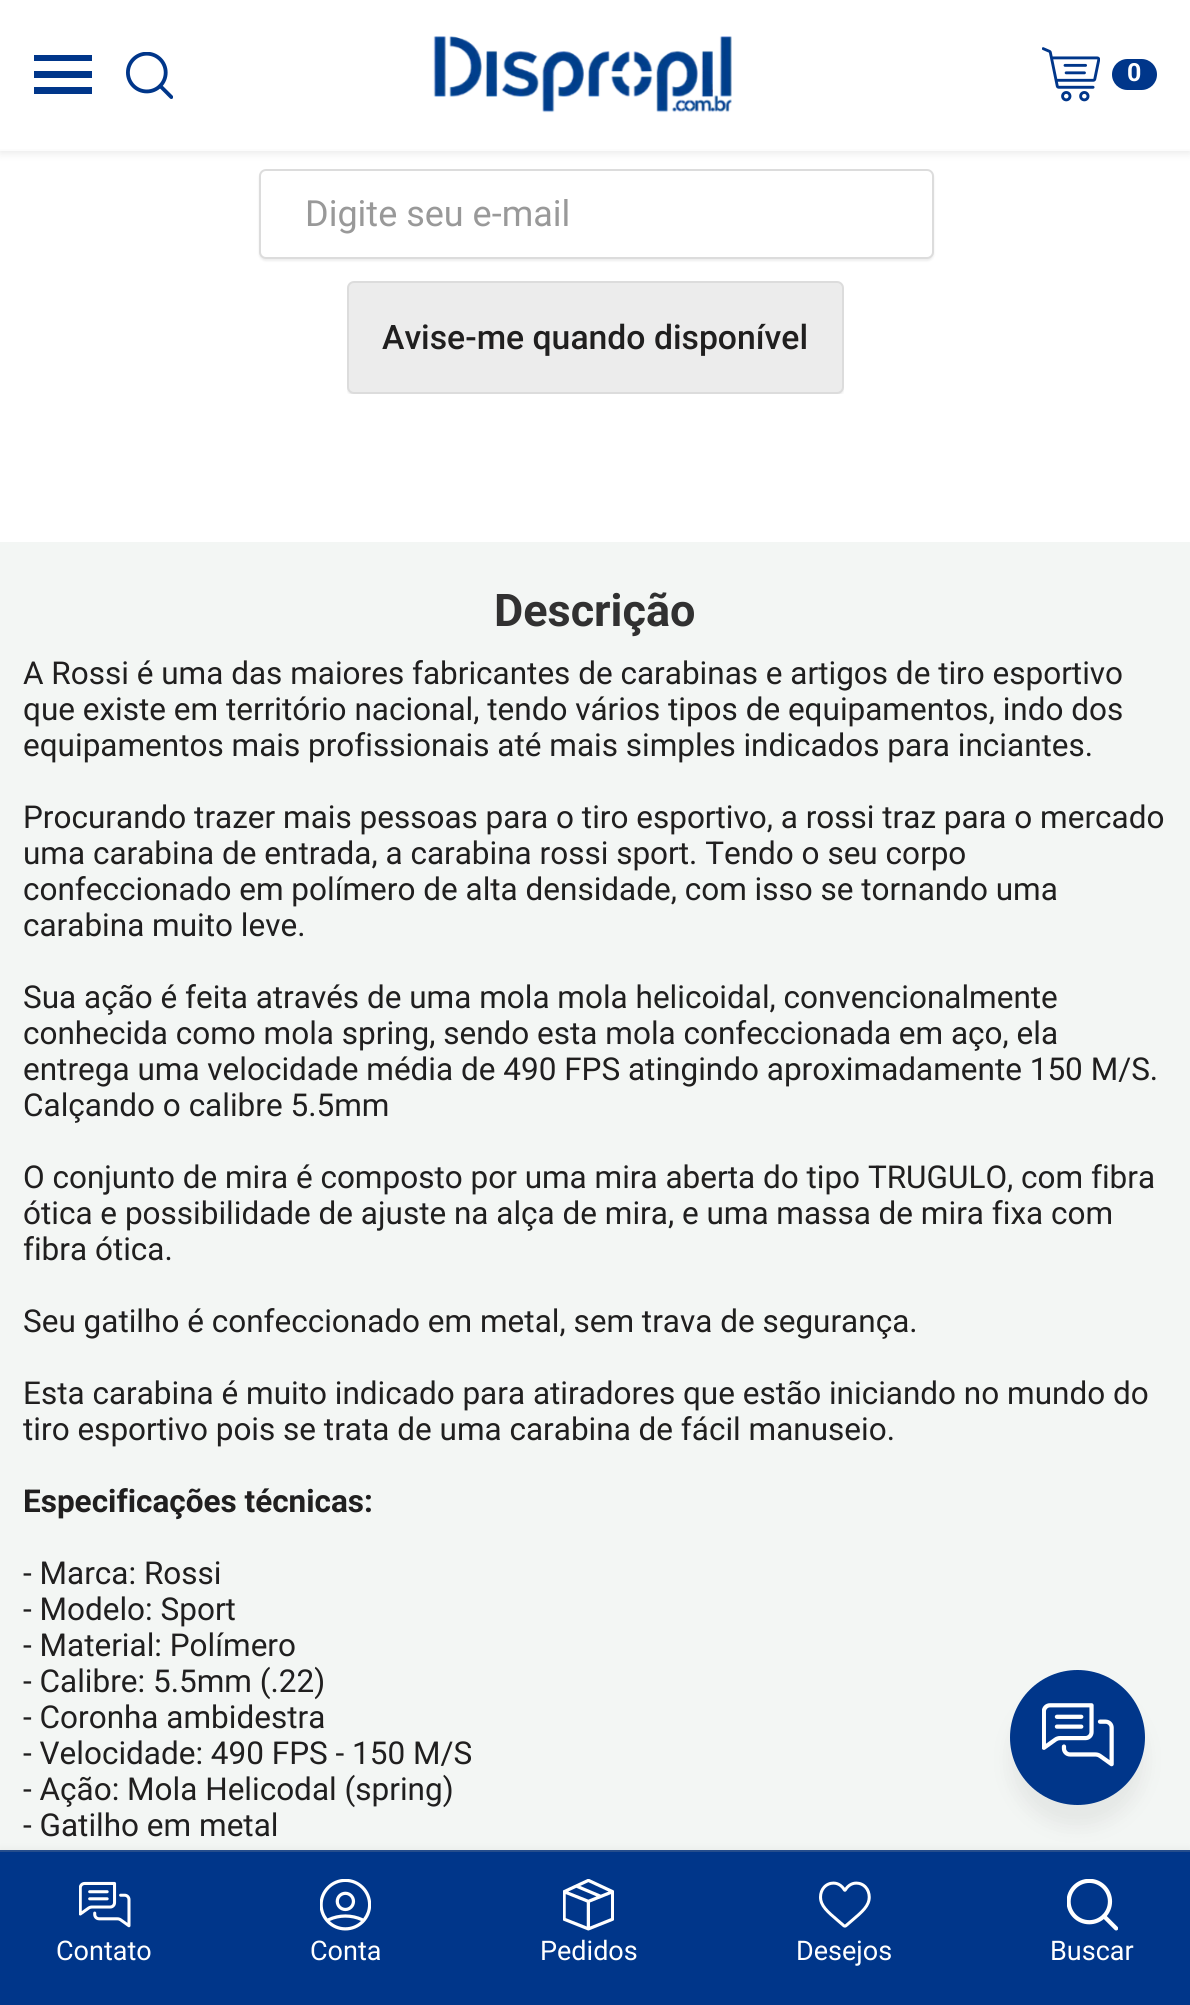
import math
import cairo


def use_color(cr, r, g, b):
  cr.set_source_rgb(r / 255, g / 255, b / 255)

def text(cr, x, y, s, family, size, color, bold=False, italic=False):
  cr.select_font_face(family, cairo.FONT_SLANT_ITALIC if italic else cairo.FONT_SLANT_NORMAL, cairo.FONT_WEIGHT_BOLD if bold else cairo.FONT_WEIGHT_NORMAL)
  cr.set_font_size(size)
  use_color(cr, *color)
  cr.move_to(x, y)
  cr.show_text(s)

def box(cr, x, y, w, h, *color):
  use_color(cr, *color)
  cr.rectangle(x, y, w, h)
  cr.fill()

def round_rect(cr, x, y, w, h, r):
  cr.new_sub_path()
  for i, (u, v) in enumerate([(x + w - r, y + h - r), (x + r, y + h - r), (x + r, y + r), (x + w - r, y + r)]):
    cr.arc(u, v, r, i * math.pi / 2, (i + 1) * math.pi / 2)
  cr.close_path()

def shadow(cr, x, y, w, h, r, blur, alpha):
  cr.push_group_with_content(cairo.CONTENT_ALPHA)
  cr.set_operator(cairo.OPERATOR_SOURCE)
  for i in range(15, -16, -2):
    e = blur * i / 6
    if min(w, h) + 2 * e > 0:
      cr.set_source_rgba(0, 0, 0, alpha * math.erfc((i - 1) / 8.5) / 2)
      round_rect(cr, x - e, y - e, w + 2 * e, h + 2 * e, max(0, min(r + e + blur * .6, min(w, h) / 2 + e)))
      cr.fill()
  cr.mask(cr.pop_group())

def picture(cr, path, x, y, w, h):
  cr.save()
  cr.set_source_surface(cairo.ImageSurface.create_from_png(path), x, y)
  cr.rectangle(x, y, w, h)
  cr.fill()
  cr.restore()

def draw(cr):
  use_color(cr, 255, 255, 255)
  cr.paint()
  use_color(cr, 82, 82, 82)
  shadow(cr, 0, 2, 1190, 151, 0, 4.5, 0.13)
  box(cr, 0, 0, 1190, 149, 255, 255, 255)
  box(cr, 0, 149, 1190, 2, 252, 252, 252)
  box(cr, 34, 87, 58, 7, 0, 54, 138)
  box(cr, 34, 71, 58, 7, 0, 54, 138)
  box(cr, 34, 55, 58, 6, 0, 54, 138)
  picture(cr, "img_01.png", 126, 52, 47, 47)
  picture(cr, "img_02.png", 433, 36, 299, 77)
  picture(cr, "img_03.png", 1042, 47, 58, 55)
  round_rect(cr, 1112, 59, 45, 31, 15.5)
  cr.fill()
  use_color(cr, 205, 205, 205)
  shadow(cr, 259, 171, 675, 90, 7, 1, 0.35)
  use_color(cr, 255, 255, 255)
  round_rect(cr, 260, 170, 673, 88, 6)
  cr.fill_preserve()
  use_color(cr, 220, 220, 220)
  cr.stroke()
  cr.save()
  cr.rectangle(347, 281, 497, 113)
  cr.clip()
  use_color(cr, 205, 205, 205)
  shadow(cr, 347, 284, 497, 112, 7, 1, 0.35)
  cr.restore()
  use_color(cr, 236, 236, 236)
  round_rect(cr, 348, 282, 495, 111, 6)
  cr.fill_preserve()
  use_color(cr, 220, 220, 220)
  cr.stroke()
  box(cr, 0, 542, 1190, 1308, 243, 246, 244)
  use_color(cr, 103, 103, 103)
  shadow(cr, 1010, 1692, 135, 135, 67.5, 9, 0.1)
  use_color(cr, 0, 54, 138)
  cr.arc(1077.5, 1737.5, 67.5, 0, 2 * math.pi)
  cr.fill()
  picture(cr, "img_04.png", 1042, 1703, 72, 64)
  use_color(cr, 82, 82, 82)
  shadow(cr, 0, 1850, 1190, 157, 0, 4.5, 0.08)
  box(cr, 0, 1852, 1190, 153, 0, 54, 138)
  box(cr, 0, 1850, 1190, 2, 37, 77, 140)
  picture(cr, "img_05.png", 79, 1881, 52, 47)
  picture(cr, "img_06.png", 320, 1879, 51, 52)
  picture(cr, "img_07.png", 563, 1879, 51, 52)
  picture(cr, "img_08.png", 819, 1881, 52, 47)
  picture(cr, "img_09.png", 1067, 1879, 51, 52)
  text(cr, 1127, 81, "0", "Roboto", 25, (255, 255, 255), bold=True)
  text(cr, 305, 226, "Digite seu e-mail", "Roboto", 36, (153, 153, 153))
  text(cr, 382, 349, "Avise-me quando disponível", "Roboto Medium", 33.75, (32, 31, 31))
  text(cr, 494, 626, "Descrição", "Roboto", 45, (49, 49, 49), bold=True)
  text(cr, 23, 684, "A Rossi é uma das maiores fabricantes de carabinas e artigos de tiro esportivo", "Roboto", 31.5, (32, 31, 31))
  text(cr, 23, 720, "que existe em território nacional, tendo vários tipos de equipamentos, indo dos", "Roboto", 31.5, (32, 31, 31))
  text(cr, 23, 756, "equipamentos mais profissionais até mais simples indicados para inciantes.", "Roboto", 31.5, (32, 31, 31))
  text(cr, 23, 828, "Procurando trazer mais pessoas para o tiro esportivo, a rossi traz para o mercado", "Roboto", 31.5, (32, 31, 31))
  text(cr, 23, 864, "uma carabina de entrada, a carabina rossi sport. Tendo o seu corpo", "Roboto", 31.5, (32, 31, 31))
  text(cr, 23, 900, "confeccionado em polímero de alta densidade, com isso se tornando uma", "Roboto", 31.5, (32, 31, 31))
  text(cr, 23, 936, "carabina muito leve.", "Roboto", 31.5, (32, 31, 31))
  text(cr, 23, 1008, "Sua ação é feita através de uma mola mola helicoidal, convencionalmente", "Roboto", 31.5, (32, 31, 31))
  text(cr, 23, 1044, "conhecida como mola spring, sendo esta mola confeccionada em aço, ela", "Roboto", 31.5, (32, 31, 31))
  text(cr, 23, 1080, "entrega uma velocidade média de 490 FPS atingindo aproximadamente 150 M/S.", "Roboto", 31.5, (32, 31, 31))
  text(cr, 23, 1116, "Calçando o calibre 5.5mm", "Roboto", 31.5, (32, 31, 31))
  text(cr, 23, 1188, "O conjunto de mira é composto por uma mira aberta do tipo TRUGULO, com fibra", "Roboto", 31.5, (32, 31, 31))
  text(cr, 23, 1224, "ótica e possibilidade de ajuste na alça de mira, e uma massa de mira fixa com", "Roboto", 31.5, (32, 31, 31))
  text(cr, 23, 1260, "fibra ótica.", "Roboto", 31.5, (32, 31, 31))
  text(cr, 23, 1332, "Seu gatilho é confeccionado em metal, sem trava de segurança.", "Roboto", 31.5, (32, 31, 31))
  text(cr, 23, 1404, "Esta carabina é muito indicado para atiradores que estão iniciando no mundo do", "Roboto", 31.5, (32, 31, 31))
  text(cr, 23, 1440, "tiro esportivo pois se trata de uma carabina de fácil manuseio.", "Roboto", 31.5, (32, 31, 31))
  text(cr, 23, 1512, "Especificações técnicas:", "Roboto", 31.5, (32, 31, 31), bold=True)
  text(cr, 23, 1584, "- Marca: Rossi", "Roboto", 31.5, (32, 31, 31))
  text(cr, 23, 1620, "- Modelo: Sport", "Roboto", 31.5, (32, 31, 31))
  text(cr, 23, 1656, "- Material: Polímero", "Roboto", 31.5, (32, 31, 31))
  text(cr, 23, 1692, "- Calibre: 5.5mm (.22)", "Roboto", 31.5, (32, 31, 31))
  text(cr, 23, 1728, "- Coronha ambidestra", "Roboto", 31.5, (32, 31, 31))
  text(cr, 23, 1764, "- Velocidade: 490 FPS - 150 M/S", "Roboto", 31.5, (32, 31, 31))
  text(cr, 23, 1800, "- Ação: Mola Helicodal (spring)", "Roboto", 31.5, (32, 31, 31))
  text(cr, 23, 1836, "- Gatilho em metal", "Roboto", 31.5, (32, 31, 31))
  text(cr, 56, 1960, "Contato", "Roboto", 27, (255, 255, 255))
  text(cr, 310, 1960, "Conta", "Roboto", 27, (255, 255, 255))
  text(cr, 540, 1960, "Pedidos", "Roboto", 27, (255, 255, 255))
  text(cr, 796, 1960, "Desejos", "Roboto", 27, (255, 255, 255))
  text(cr, 1050, 1960, "Buscar", "Roboto", 27, (255, 255, 255))


surface = cairo.ImageSurface(cairo.FORMAT_RGB24, 1190, 2005)
cr = cairo.Context(surface)
options = cairo.FontOptions()
options.set_hint_metrics(cairo.HINT_METRICS_OFF)
options.set_hint_style(cairo.HINT_STYLE_NONE)
cr.set_font_options(options)
cr.set_miter_limit(4)
draw(cr)
surface.write_to_png("out.png")
